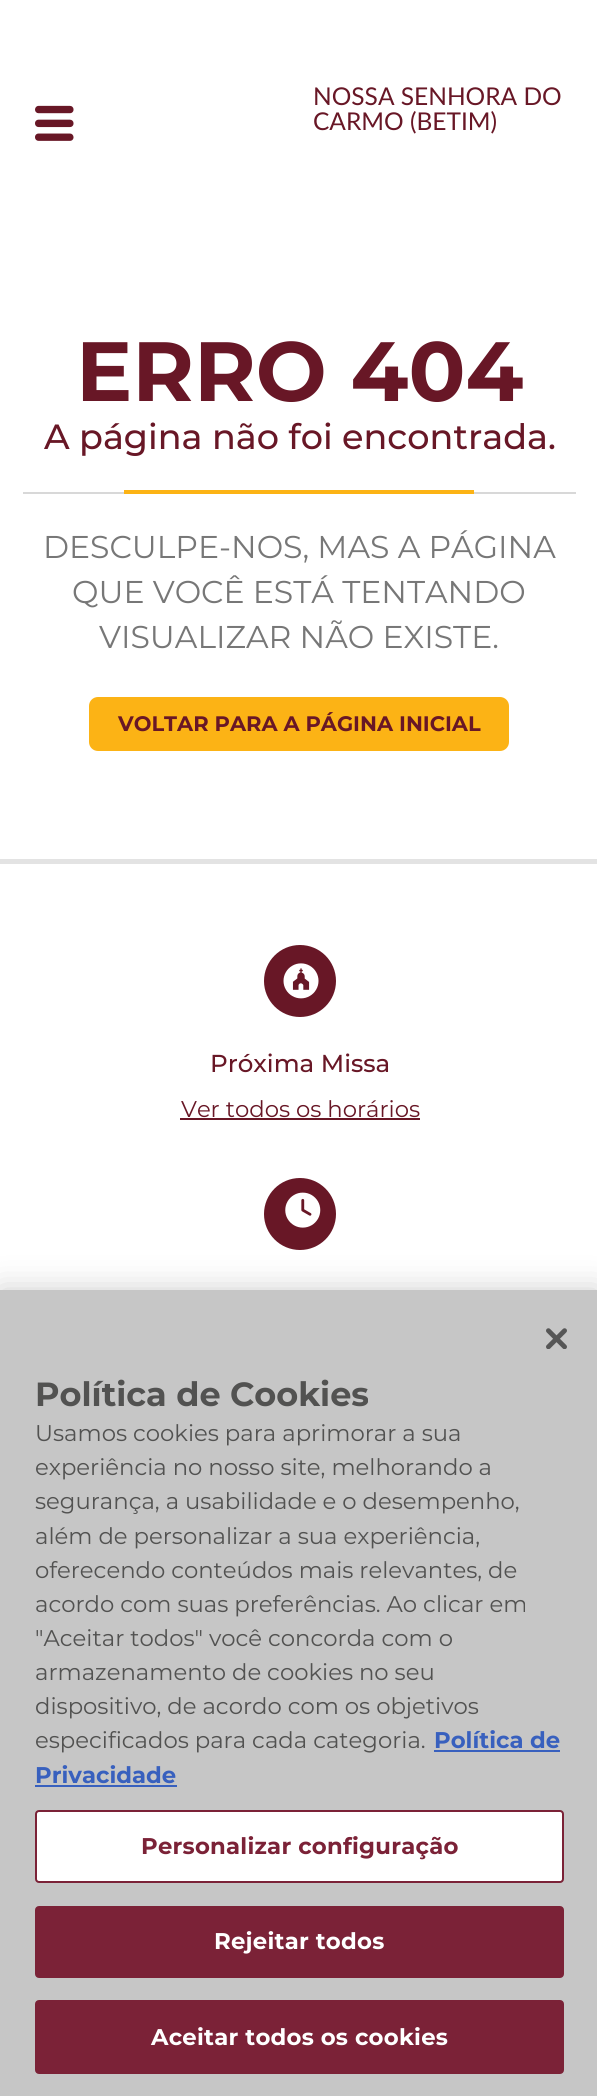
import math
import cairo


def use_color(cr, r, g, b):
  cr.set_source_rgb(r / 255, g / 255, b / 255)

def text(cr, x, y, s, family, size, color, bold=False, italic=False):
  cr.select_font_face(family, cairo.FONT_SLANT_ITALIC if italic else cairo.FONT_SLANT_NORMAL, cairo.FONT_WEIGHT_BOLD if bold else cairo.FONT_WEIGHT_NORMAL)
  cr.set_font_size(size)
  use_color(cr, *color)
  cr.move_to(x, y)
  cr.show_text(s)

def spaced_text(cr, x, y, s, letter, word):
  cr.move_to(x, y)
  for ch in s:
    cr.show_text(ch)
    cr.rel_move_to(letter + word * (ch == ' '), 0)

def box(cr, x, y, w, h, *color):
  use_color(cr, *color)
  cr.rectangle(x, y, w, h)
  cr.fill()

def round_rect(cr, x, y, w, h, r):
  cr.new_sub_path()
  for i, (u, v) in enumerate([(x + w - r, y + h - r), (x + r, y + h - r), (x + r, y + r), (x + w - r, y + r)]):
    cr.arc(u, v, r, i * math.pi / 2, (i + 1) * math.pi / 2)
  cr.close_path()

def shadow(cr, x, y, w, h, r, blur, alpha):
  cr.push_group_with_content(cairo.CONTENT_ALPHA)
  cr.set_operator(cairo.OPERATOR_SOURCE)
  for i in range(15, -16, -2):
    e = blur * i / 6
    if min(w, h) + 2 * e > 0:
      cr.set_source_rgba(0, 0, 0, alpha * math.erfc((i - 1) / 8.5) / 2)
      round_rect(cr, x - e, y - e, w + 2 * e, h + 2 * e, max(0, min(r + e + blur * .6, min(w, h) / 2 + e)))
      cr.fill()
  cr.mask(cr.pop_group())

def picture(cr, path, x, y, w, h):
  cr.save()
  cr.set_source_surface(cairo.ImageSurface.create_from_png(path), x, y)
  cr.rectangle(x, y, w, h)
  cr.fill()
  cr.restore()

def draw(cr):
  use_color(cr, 255, 255, 255)
  cr.paint()
  picture(cr, "img_01.png", 35, 105, 39, 36)
  box(cr, 23, 492, 553, 2, 216, 216, 216)
  box(cr, 124, 490, 350, 4, 252, 179, 21)
  round_rect(cr, 90, 698, 418, 52, 8)
  cr.fill_preserve()
  cr.stroke()
  box(cr, 0, 859, 597, 5, 227, 227, 227)
  use_color(cr, 104, 23, 38)
  cr.arc(300, 981, 36, 0, 2 * math.pi)
  cr.fill()
  picture(cr, "img_02.png", 283, 963, 36, 36)
  box(cr, 180, 1118, 240, 2, 104, 23, 38)
  cr.arc(300, 1214, 36, 0, 2 * math.pi)
  cr.fill()
  picture(cr, "img_03.png", 285, 1192, 36, 36)
  use_color(cr, 0, 0, 0)
  shadow(cr, 0, 1290, 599, 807, 0, 16, 0.2)
  box(cr, 0, 1290, 597, 806, 198, 198, 198)
  picture(cr, "img_04.png", 546, 1328, 21, 21)
  box(cr, 434, 1750, 126, 2, 56, 96, 190)
  box(cr, 35, 1785, 142, 2, 56, 96, 190)
  use_color(cr, 255, 255, 255)
  round_rect(cr, 36, 1811, 527, 71, 3)
  cr.fill_preserve()
  use_color(cr, 123, 34, 55)
  cr.stroke()
  round_rect(cr, 36, 1907, 527, 70, 3)
  cr.fill_preserve()
  cr.stroke()
  round_rect(cr, 36, 2001, 527, 72, 3)
  cr.fill_preserve()
  cr.stroke()
  text(cr, 313, 105, "NOSSA SENHORA DO", "Lato", 24.5, (104, 23, 38))
  text(cr, 313, 130, "CARMO (BETIM)", "Lato", 24.5, (104, 23, 38))
  text(cr, 76, 401, "ERRO 404", "Montserrat", 84, (104, 23, 38), bold=True)
  text(cr, 44, 449, "A página não foi encontrada.", "Montserrat Medium", 35, (104, 23, 38))
  text(cr, 43, 558, "DESCULPE-NOS, MAS A PÁGINA", "Montserrat", 31.5, (119, 119, 119))
  text(cr, 72, 603, "QUE VOCÊ ESTÁ TENTANDO", "Montserrat", 31.5, (119, 119, 119))
  text(cr, 99, 648, "VISUALIZAR NÃO EXISTE.", "Montserrat", 31.5, (119, 119, 119))
  text(cr, 118, 731, "VOLTAR PARA A PÁGINA INICIAL", "Montserrat", 21, (104, 23, 38), bold=True)
  text(cr, 210, 1072, "Próxima Missa", "Montserrat Medium", 24.5, (104, 23, 38))
  text(cr, 181, 1117, "Ver todos os horários", "Montserrat", 22.75, (104, 23, 38))
  text(cr, 35, 1406, "Política de Cookies", "Montserrat", 33.5, (82, 82, 81), bold=True)
  text(cr, 35, 1441, "Usamos cookies para aprimorar a sua", "Montserrat", 22.75, (82, 82, 81))
  text(cr, 35, 1475, "experiência no nosso site, melhorando a", "Montserrat", 22.75, (82, 82, 81))
  text(cr, 35, 1509, "segurança, a usabilidade e o desempenho,", "Montserrat", 22.75, (82, 82, 81))
  text(cr, 35, 1544, "além de personalizar a sua experiência,", "Montserrat", 22.75, (82, 82, 81))
  text(cr, 35, 1578, "oferecendo conteúdos mais relevantes, de", "Montserrat", 22.75, (82, 82, 81))
  text(cr, 35, 1612, "acordo com suas preferências. Ao clicar em", "Montserrat", 22.75, (82, 82, 81))
  text(cr, 35, 1646, "\"Aceitar todos\" você concorda com o", "Montserrat", 22.75, (82, 82, 81))
  text(cr, 35, 1680, "armazenamento de cookies no seu", "Montserrat", 22.75, (82, 82, 81))
  text(cr, 35, 1714, "dispositivo, de acordo com os objetivos", "Montserrat", 22.75, (82, 82, 81))
  text(cr, 35, 1748, "especificados para cada categoria.", "Montserrat", 22.75, (82, 82, 81))
  text(cr, 434, 1748, "Política de", "Montserrat", 22.75, (56, 96, 190), bold=True)
  text(cr, 35, 1783, "Privacidade", "Montserrat", 22.75, (56, 96, 190), bold=True)
  use_color(cr, 123, 34, 55)
  spaced_text(cr, 141, 1854, "Personalizar configuração", 0.25, 0)
  use_color(cr, 255, 255, 255)
  spaced_text(cr, 214, 1949, "Rejeitar todos", 0.25, 0)
  spaced_text(cr, 151, 2045, "Aceitar todos os cookies", 0.25, 0)


surface = cairo.ImageSurface(cairo.FORMAT_RGB24, 597, 2096)
cr = cairo.Context(surface)
options = cairo.FontOptions()
options.set_hint_metrics(cairo.HINT_METRICS_OFF)
options.set_hint_style(cairo.HINT_STYLE_NONE)
cr.set_font_options(options)
cr.set_miter_limit(4)
draw(cr)
surface.write_to_png("out.png")
